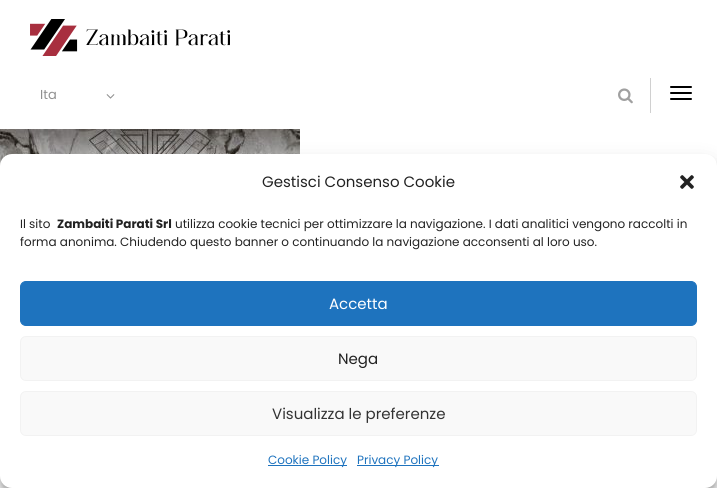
import math
import cairo


def use_color(cr, r, g, b):
  cr.set_source_rgb(r / 255, g / 255, b / 255)

def text(cr, x, y, s, family, size, color, bold=False, italic=False):
  cr.select_font_face(family, cairo.FONT_SLANT_ITALIC if italic else cairo.FONT_SLANT_NORMAL, cairo.FONT_WEIGHT_BOLD if bold else cairo.FONT_WEIGHT_NORMAL)
  cr.set_font_size(size)
  use_color(cr, *color)
  cr.move_to(x, y)
  cr.show_text(s)

def box(cr, x, y, w, h, *color):
  use_color(cr, *color)
  cr.rectangle(x, y, w, h)
  cr.fill()

def round_rect(cr, x, y, w, h, r):
  cr.new_sub_path()
  for i, (u, v) in enumerate([(x + w - r, y + h - r), (x + r, y + h - r), (x + r, y + r), (x + w - r, y + r)]):
    cr.arc(u, v, r, i * math.pi / 2, (i + 1) * math.pi / 2)
  cr.close_path()

def shadow(cr, x, y, w, h, r, blur, alpha):
  cr.push_group_with_content(cairo.CONTENT_ALPHA)
  cr.set_operator(cairo.OPERATOR_SOURCE)
  for i in range(15, -16, -2):
    e = blur * i / 6
    if min(w, h) + 2 * e > 0:
      cr.set_source_rgba(0, 0, 0, alpha * math.erfc((i - 1) / 8.5) / 2)
      round_rect(cr, x - e, y - e, w + 2 * e, h + 2 * e, max(0, min(r + e + blur * .6, min(w, h) / 2 + e)))
      cr.fill()
  cr.mask(cr.pop_group())

def picture(cr, path, x, y, w, h):
  cr.save()
  cr.set_source_surface(cairo.ImageSurface.create_from_png(path), x, y)
  cr.rectangle(x, y, w, h)
  cr.fill()
  cr.restore()

def draw(cr):
  use_color(cr, 255, 255, 255)
  cr.paint()
  picture(cr, "img_01.png", 30, 19, 200, 37)
  picture(cr, "img_02.png", 106, 94, 9, 5)
  box(cr, 650, 78, 1, 35, 208, 208, 208)
  picture(cr, "img_03.png", 618, 88, 15, 16)
  use_color(cr, 0, 0, 0)
  round_rect(cr, 670, 86, 22, 2, 1)
  cr.fill()
  round_rect(cr, 670, 92, 22, 2, 1)
  cr.fill()
  round_rect(cr, 670, 98, 22, 2, 1)
  cr.fill()
  picture(cr, "img_04.png", 0, 129, 300, 37)
  use_color(cr, 0, 0, 0)
  shadow(cr, 0, 160, 717, 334, 12, 3, 0.23)
  shadow(cr, 0, 164, 717, 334, 12, 10, 0.19)
  use_color(cr, 255, 255, 255)
  round_rect(cr, 0, 154, 717, 334, 12)
  cr.fill()
  picture(cr, "img_05.png", 680, 175, 14, 14)
  use_color(cr, 30, 115, 190)
  round_rect(cr, 20.5, 281.5, 676, 44, 5.5)
  cr.fill_preserve()
  cr.set_line_width(1)
  cr.stroke()
  use_color(cr, 249, 249, 249)
  round_rect(cr, 20.5, 336.5, 676, 44, 5.5)
  cr.fill_preserve()
  use_color(cr, 242, 242, 242)
  cr.stroke()
  use_color(cr, 249, 249, 249)
  round_rect(cr, 20.5, 391.5, 676, 44, 5.5)
  cr.fill_preserve()
  use_color(cr, 242, 242, 242)
  cr.stroke()
  box(cr, 268, 465, 79, 1, 30, 115, 190)
  box(cr, 357, 465, 82, 1, 30, 115, 190)
  text(cr, 40, 99, "Ita", "Poppins", 13, (144, 144, 144))
  text(cr, 262, 187, "Gestisci Consenso Cookie", "Poppins", 15, (34, 34, 34))
  text(cr, 20, 228, "Il sito", "Poppins", 12, (34, 34, 34))
  text(cr, 57, 228, "Zambaiti Parati Srl", "Poppins", 12, (34, 34, 34), bold=True)
  text(cr, 175, 228, "utilizza cookie tecnici per ottimizzare la navigazione. I dati analitici vengono raccolti in", "Poppins", 12, (34, 34, 34))
  text(cr, 20, 246, "forma anonima. Chiudendo questo banner o continuando la navigazione acconsenti al loro uso.", "Poppins", 12, (34, 34, 34))
  text(cr, 329, 309, "Accetta", "Poppins", 15, (255, 255, 255))
  text(cr, 338, 364, "Nega", "Poppins", 15, (34, 34, 34))
  text(cr, 272, 419, "Visualizza le preferenze", "Poppins", 15, (51, 51, 51))
  text(cr, 268, 464, "Cookie Policy", "Poppins", 12, (30, 115, 190))
  text(cr, 357, 464, "Privacy Policy", "Poppins", 12, (30, 115, 190))


surface = cairo.ImageSurface(cairo.FORMAT_RGB24, 717, 488)
cr = cairo.Context(surface)
options = cairo.FontOptions()
options.set_hint_metrics(cairo.HINT_METRICS_OFF)
options.set_hint_style(cairo.HINT_STYLE_NONE)
cr.set_font_options(options)
cr.set_miter_limit(4)
draw(cr)
surface.write_to_png("out.png")
